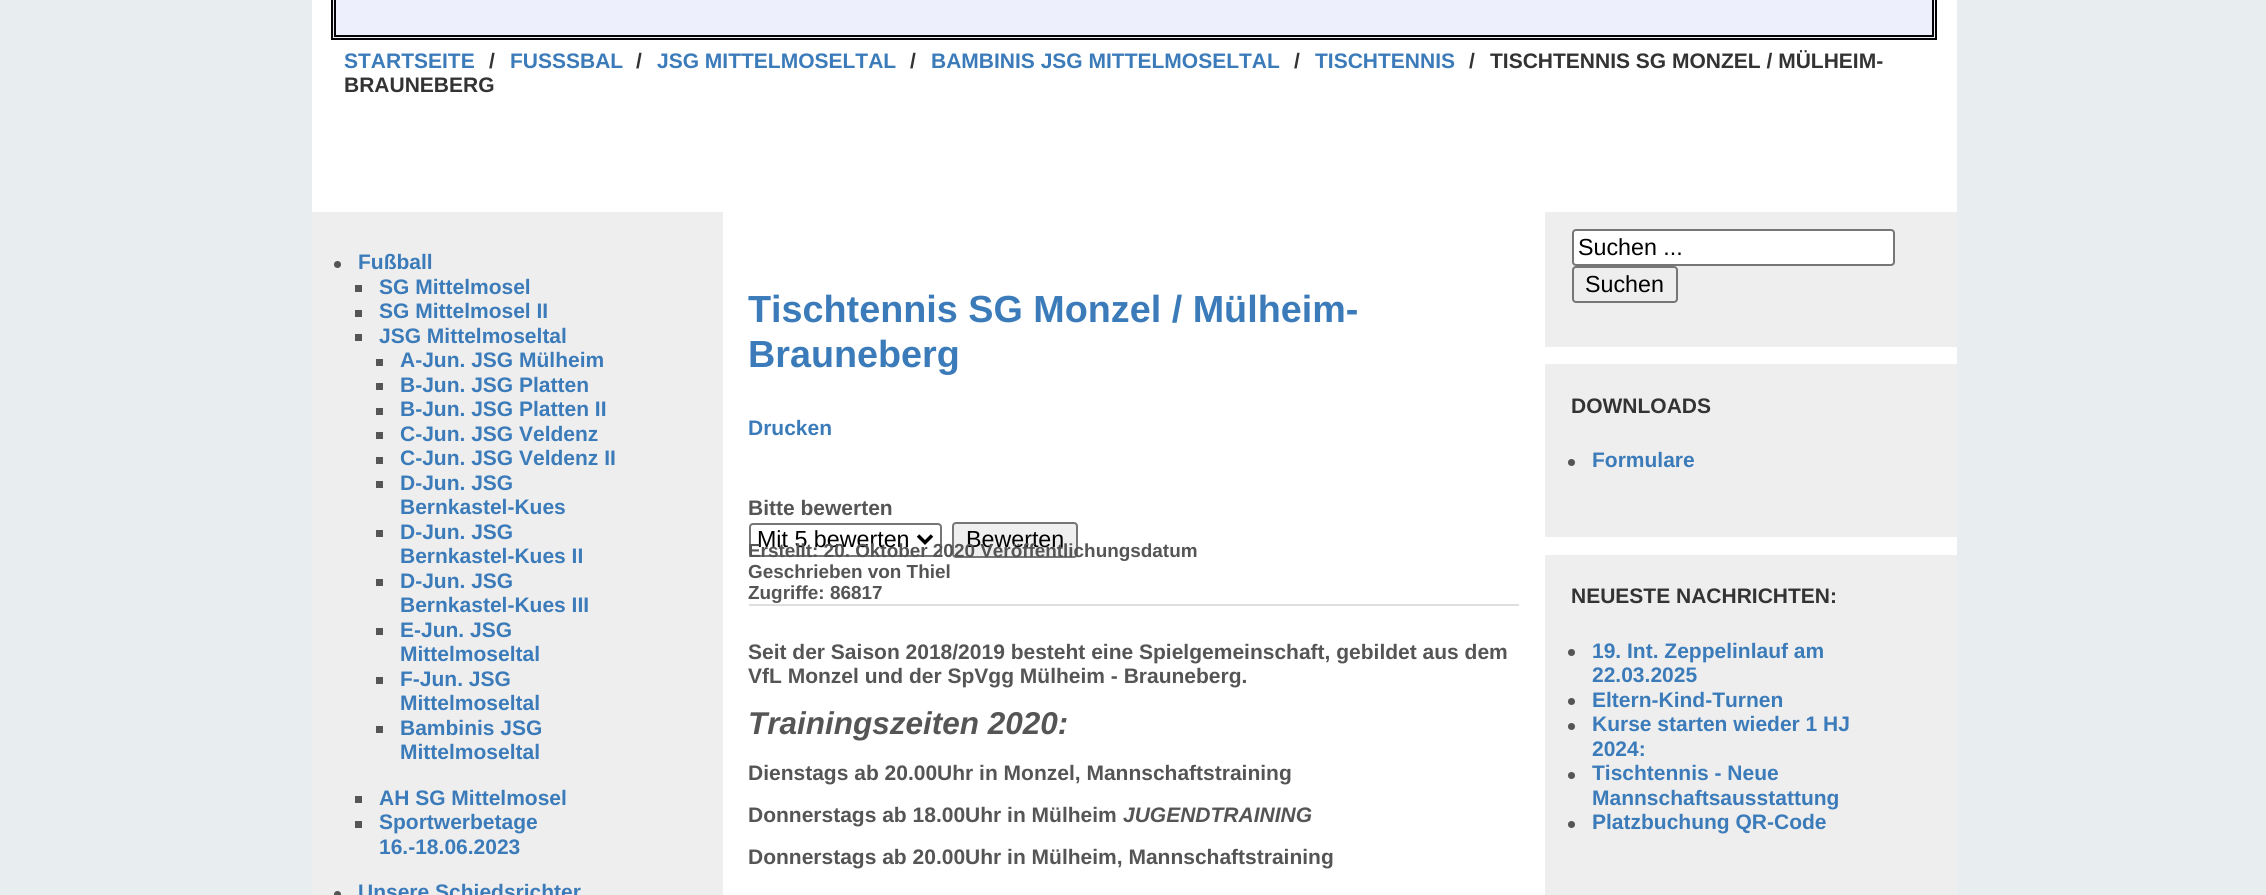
import math
import cairo


def use_color(cr, r, g, b):
  cr.set_source_rgb(r / 255, g / 255, b / 255)

def text(cr, x, y, s, family, size, color, bold=False, italic=False):
  cr.select_font_face(family, cairo.FONT_SLANT_ITALIC if italic else cairo.FONT_SLANT_NORMAL, cairo.FONT_WEIGHT_BOLD if bold else cairo.FONT_WEIGHT_NORMAL)
  cr.set_font_size(size)
  use_color(cr, *color)
  cr.move_to(x, y)
  cr.show_text(s)

def box(cr, x, y, w, h, *color):
  use_color(cr, *color)
  cr.rectangle(x, y, w, h)
  cr.fill()

def round_rect(cr, x, y, w, h, r):
  cr.new_sub_path()
  for i, (u, v) in enumerate([(x + w - r, y + h - r), (x + r, y + h - r), (x + r, y + r), (x + w - r, y + r)]):
    cr.arc(u, v, r, i * math.pi / 2, (i + 1) * math.pi / 2)
  cr.close_path()

def draw(cr):
  use_color(cr, 232, 237, 239)
  cr.paint()
  box(cr, 312, 0, 1645, 895, 255, 255, 255)
  use_color(cr, 238, 239, 252)
  cr.rectangle(332, -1, 1604, 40)
  cr.fill_preserve()
  use_color(cr, 5, 5, 5)
  cr.stroke()
  cr.rectangle(335, -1, 1598, 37)
  cr.stroke()
  box(cr, 312, 212, 411, 683, 238, 238, 238)
  use_color(cr, 85, 85, 85)
  cr.arc(337.5, 264.5, 3.5, 0, 2 * math.pi)
  cr.fill()
  box(cr, 355, 285, 7, 7, 85, 85, 85)
  box(cr, 355, 310, 7, 7, 85, 85, 85)
  box(cr, 355, 334, 7, 7, 85, 85, 85)
  box(cr, 376, 359, 7, 7, 85, 85, 85)
  box(cr, 376, 383, 7, 7, 85, 85, 85)
  box(cr, 376, 408, 7, 7, 85, 85, 85)
  box(cr, 376, 432, 7, 7, 85, 85, 85)
  box(cr, 376, 457, 7, 7, 85, 85, 85)
  box(cr, 376, 481, 7, 7, 85, 85, 85)
  box(cr, 376, 530, 7, 7, 85, 85, 85)
  box(cr, 376, 579, 7, 7, 85, 85, 85)
  box(cr, 376, 628, 7, 7, 85, 85, 85)
  box(cr, 376, 677, 7, 7, 85, 85, 85)
  box(cr, 376, 726, 7, 7, 85, 85, 85)
  box(cr, 355, 796, 7, 7, 85, 85, 85)
  box(cr, 355, 821, 7, 7, 85, 85, 85)
  cr.arc(337.5, 894.5, 3.5, 0, 2 * math.pi)
  cr.fill()
  round_rect(cr, 750, 524, 191, 32, 3)
  use_color(cr, 118, 118, 118)
  cr.stroke()
  cr.new_path()
  cr.move_to(918, 535.5)
  cr.line_to(925, 542.5)
  cr.line_to(932, 535.5)
  use_color(cr, 0, 0, 0)
  cr.set_line_width(3.5)
  cr.stroke()
  use_color(cr, 239, 239, 239)
  round_rect(cr, 953, 523, 124, 34, 3)
  cr.fill_preserve()
  use_color(cr, 118, 118, 118)
  cr.set_line_width(2)
  cr.stroke()
  box(cr, 749, 604, 770, 2, 222, 222, 222)
  box(cr, 1545, 212, 412, 135, 238, 238, 238)
  use_color(cr, 255, 255, 255)
  round_rect(cr, 1573, 230, 321, 35, 3)
  cr.fill_preserve()
  use_color(cr, 118, 118, 118)
  cr.stroke()
  round_rect(cr, 1573, 267, 104, 35, 3)
  cr.stroke()
  box(cr, 1545, 364, 412, 173, 238, 238, 238)
  use_color(cr, 85, 85, 85)
  cr.arc(1571.5, 462.5, 3.5, 0, 2 * math.pi)
  cr.fill()
  box(cr, 1545, 555, 412, 340, 238, 238, 238)
  use_color(cr, 85, 85, 85)
  cr.arc(1571.5, 652.5, 3.5, 0, 2 * math.pi)
  cr.fill()
  cr.arc(1571.5, 701.5, 3.5, 0, 2 * math.pi)
  cr.fill()
  cr.arc(1571.5, 726.5, 3.5, 0, 2 * math.pi)
  cr.fill()
  cr.arc(1571.5, 775.5, 3.5, 0, 2 * math.pi)
  cr.fill()
  cr.arc(1571.5, 824.5, 3.5, 0, 2 * math.pi)
  cr.fill()
  text(cr, 344, 68, "STARTSEITE", "Liberation Sans", 21, (59, 123, 185), bold=True)
  text(cr, 489, 68, "/", "Liberation Sans", 21, (51, 51, 51), bold=True)
  text(cr, 510, 68, "FUSSSBAL", "Liberation Sans", 21, (59, 123, 185), bold=True)
  text(cr, 636, 68, "/", "Liberation Sans", 21, (51, 51, 51), bold=True)
  text(cr, 657, 68, "JSG MITTELMOSELTAL", "Liberation Sans", 21, (59, 123, 185), bold=True)
  text(cr, 910, 68, "/", "Liberation Sans", 21, (51, 51, 51), bold=True)
  text(cr, 931, 68, "BAMBINIS JSG MITTELMOSELTAL", "Liberation Sans", 21, (59, 123, 185), bold=True)
  text(cr, 1294, 68, "/", "Liberation Sans", 21, (51, 51, 51), bold=True)
  text(cr, 1315, 68, "TISCHTENNIS", "Liberation Sans", 21, (59, 123, 185), bold=True)
  text(cr, 1469, 68, "/", "Liberation Sans", 21, (51, 51, 51), bold=True)
  text(cr, 1490, 68, "TISCHTENNIS SG MONZEL / MÜLHEIM-", "Liberation Sans", 21, (51, 51, 51), bold=True)
  text(cr, 344, 92, "BRAUNEBERG", "Liberation Sans", 21, (51, 51, 51), bold=True)
  text(cr, 358, 269, "Fußball", "Liberation Sans", 21, (59, 123, 185), bold=True)
  text(cr, 379, 294, "SG Mittelmosel", "Liberation Sans", 21, (59, 123, 185), bold=True)
  text(cr, 379, 318, "SG Mittelmosel II", "Liberation Sans", 21, (59, 123, 185), bold=True)
  text(cr, 379, 343, "JSG Mittelmoseltal", "Liberation Sans", 21, (59, 123, 185), bold=True)
  text(cr, 400, 367, "A-Jun. JSG Mülheim", "Liberation Sans", 21, (59, 123, 185), bold=True)
  text(cr, 400, 392, "B-Jun. JSG Platten", "Liberation Sans", 21, (59, 123, 185), bold=True)
  text(cr, 400, 416, "B-Jun. JSG Platten II", "Liberation Sans", 21, (59, 123, 185), bold=True)
  text(cr, 400, 441, "C-Jun. JSG Veldenz", "Liberation Sans", 21, (59, 123, 185), bold=True)
  text(cr, 400, 465, "C-Jun. JSG Veldenz II", "Liberation Sans", 21, (59, 123, 185), bold=True)
  text(cr, 400, 490, "D-Jun. JSG", "Liberation Sans", 21, (59, 123, 185), bold=True)
  text(cr, 400, 514, "Bernkastel-Kues", "Liberation Sans", 21, (59, 123, 185), bold=True)
  text(cr, 400, 539, "D-Jun. JSG", "Liberation Sans", 21, (59, 123, 185), bold=True)
  text(cr, 400, 563, "Bernkastel-Kues II", "Liberation Sans", 21, (59, 123, 185), bold=True)
  text(cr, 400, 588, "D-Jun. JSG", "Liberation Sans", 21, (59, 123, 185), bold=True)
  text(cr, 400, 612, "Bernkastel-Kues III", "Liberation Sans", 21, (59, 123, 185), bold=True)
  text(cr, 400, 637, "E-Jun. JSG", "Liberation Sans", 21, (59, 123, 185), bold=True)
  text(cr, 400, 661, "Mittelmoseltal", "Liberation Sans", 21, (59, 123, 185), bold=True)
  text(cr, 400, 686, "F-Jun. JSG", "Liberation Sans", 21, (59, 123, 185), bold=True)
  text(cr, 400, 710, "Mittelmoseltal", "Liberation Sans", 21, (59, 123, 185), bold=True)
  text(cr, 400, 735, "Bambinis JSG", "Liberation Sans", 21, (59, 123, 185), bold=True)
  text(cr, 400, 759, "Mittelmoseltal", "Liberation Sans", 21, (59, 123, 185), bold=True)
  text(cr, 379, 805, "AH SG Mittelmosel", "Liberation Sans", 21, (59, 123, 185), bold=True)
  text(cr, 379, 829, "Sportwerbetage", "Liberation Sans", 21, (59, 123, 185), bold=True)
  text(cr, 379, 854, "16.-18.06.2023", "Liberation Sans", 21, (59, 123, 185), bold=True)
  text(cr, 358, 899, "Unsere Schiedsrichter", "Liberation Sans", 21, (59, 123, 185), bold=True)
  text(cr, 748, 322, "Tischtennis SG Monzel / Mülheim-", "Liberation Sans", 37.75, (59, 123, 185), bold=True)
  text(cr, 748, 367, "Brauneberg", "Liberation Sans", 37.75, (59, 123, 185), bold=True)
  text(cr, 748, 435, "Drucken", "Liberation Sans", 21, (59, 123, 185), bold=True)
  text(cr, 748, 515, "Bitte bewerten", "Liberation Sans", 21, (85, 85, 85), bold=True)
  text(cr, 757, 547, "Mit 5 bewerten", "Liberation Sans", 23.25, (0, 0, 0))
  text(cr, 966, 547, "Bewerten", "Liberation Sans", 23.25, (0, 0, 0))
  text(cr, 748, 557, "Erstellt: 20. Oktober 2020 Veröffentlichungsdatum", "Liberation Sans", 18.9, (85, 85, 85), bold=True)
  text(cr, 748, 578, "Geschrieben von Thiel", "Liberation Sans", 18.9, (85, 85, 85), bold=True)
  text(cr, 748, 599, "Zugriffe: 86817", "Liberation Sans", 18.9, (85, 85, 85), bold=True)
  text(cr, 748, 659, "Seit der Saison 2018/2019 besteht eine Spielgemeinschaft, gebildet aus dem", "Liberation Sans", 21, (85, 85, 85), bold=True)
  text(cr, 748, 683, "VfL Monzel und der SpVgg Mülheim - Brauneberg.", "Liberation Sans", 21, (85, 85, 85), bold=True)
  text(cr, 748, 734, "Trainingszeiten 2020:", "Liberation Sans", 31.5, (85, 85, 85), bold=True, italic=True)
  text(cr, 748, 780, "Dienstags ab 20.00Uhr in Monzel, Mannschaftstraining", "Liberation Sans", 21, (85, 85, 85), bold=True)
  text(cr, 748, 822, "Donnerstags ab 18.00Uhr in Mülheim", "Liberation Sans", 21, (85, 85, 85), bold=True)
  text(cr, 1123, 822, "JUGENDTRAINING", "Liberation Sans", 21, (85, 85, 85), bold=True, italic=True)
  text(cr, 748, 864, "Donnerstags ab 20.00Uhr in Mülheim, Mannschaftstraining", "Liberation Sans", 21, (85, 85, 85), bold=True)
  text(cr, 1578, 255, "Suchen ...", "Liberation Sans", 23.25, (0, 0, 0))
  text(cr, 1585, 292, "Suchen", "Liberation Sans", 23.25, (0, 0, 0))
  text(cr, 1571, 413, "DOWNLOADS", "Liberation Sans", 21, (51, 51, 51), bold=True)
  text(cr, 1592, 467, "Formulare", "Liberation Sans", 21, (59, 123, 185), bold=True)
  text(cr, 1571, 603, "NEUESTE NACHRICHTEN:", "Liberation Sans", 21, (51, 51, 51), bold=True)
  text(cr, 1592, 658, "19. Int. Zeppelinlauf am", "Liberation Sans", 21, (59, 123, 185), bold=True)
  text(cr, 1592, 682, "22.03.2025", "Liberation Sans", 21, (59, 123, 185), bold=True)
  text(cr, 1592, 707, "Eltern-Kind-Turnen", "Liberation Sans", 21, (59, 123, 185), bold=True)
  text(cr, 1592, 731, "Kurse starten wieder 1 HJ", "Liberation Sans", 21, (59, 123, 185), bold=True)
  text(cr, 1592, 756, "2024:", "Liberation Sans", 21, (59, 123, 185), bold=True)
  text(cr, 1592, 780, "Tischtennis - Neue", "Liberation Sans", 21, (59, 123, 185), bold=True)
  text(cr, 1592, 805, "Mannschaftsausstattung", "Liberation Sans", 21, (59, 123, 185), bold=True)
  text(cr, 1592, 829, "Platzbuchung QR-Code", "Liberation Sans", 21, (59, 123, 185), bold=True)


surface = cairo.ImageSurface(cairo.FORMAT_RGB24, 2266, 895)
cr = cairo.Context(surface)
options = cairo.FontOptions()
options.set_hint_metrics(cairo.HINT_METRICS_OFF)
options.set_hint_style(cairo.HINT_STYLE_NONE)
cr.set_font_options(options)
cr.set_miter_limit(4)
draw(cr)
surface.write_to_png("out.png")
